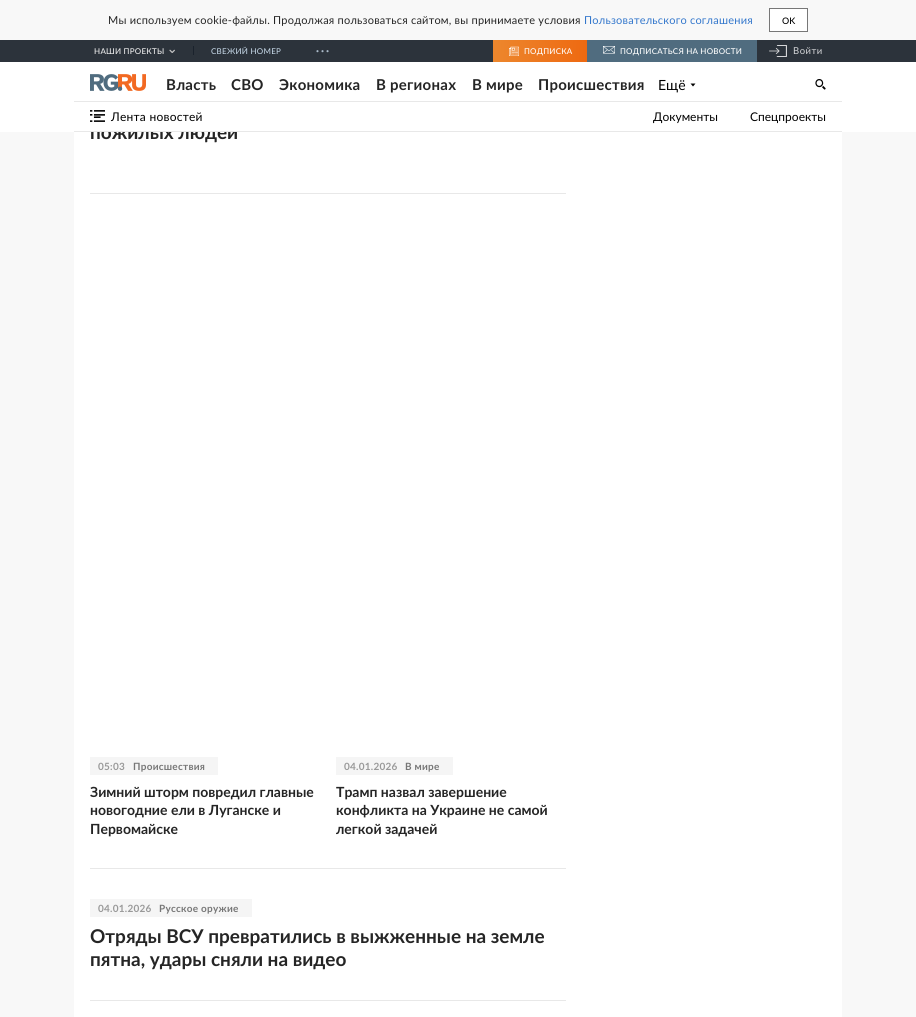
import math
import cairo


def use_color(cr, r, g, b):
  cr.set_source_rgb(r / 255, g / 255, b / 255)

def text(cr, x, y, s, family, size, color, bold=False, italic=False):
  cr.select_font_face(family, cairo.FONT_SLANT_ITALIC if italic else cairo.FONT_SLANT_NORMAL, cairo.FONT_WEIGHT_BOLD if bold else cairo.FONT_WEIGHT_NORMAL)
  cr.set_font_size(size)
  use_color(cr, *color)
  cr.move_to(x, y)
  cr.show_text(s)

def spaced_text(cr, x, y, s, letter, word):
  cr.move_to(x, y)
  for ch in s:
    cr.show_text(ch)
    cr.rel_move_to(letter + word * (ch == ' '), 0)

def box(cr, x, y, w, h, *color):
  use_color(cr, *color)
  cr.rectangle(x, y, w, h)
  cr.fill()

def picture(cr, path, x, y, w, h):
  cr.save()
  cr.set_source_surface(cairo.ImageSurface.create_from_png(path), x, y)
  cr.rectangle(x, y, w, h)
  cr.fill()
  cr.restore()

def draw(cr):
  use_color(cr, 248, 248, 248)
  cr.paint()
  use_color(cr, 255, 255, 255)
  cr.rectangle(769.5, 8.5, 38, 23)
  cr.fill_preserve()
  use_color(cr, 119, 119, 119)
  cr.set_line_width(1)
  cr.stroke()
  box(cr, 0, 40, 916, 22, 44, 51, 59)
  picture(cr, "img_01.png", 169, 49, 6, 4)
  box(cr, 193, 46, 1, 9, 26, 34, 44)
  picture(cr, "img_02.png", 316, 50, 13, 3)
  gradient = cairo.LinearGradient(587, 53, 493, 49)
  gradient.add_color_stop_rgba(0, 0.933, 0.412, 0.067, 1)
  gradient.add_color_stop_rgba(1, 0.929, 0.529, 0.176, 1)
  gradient.add_color_stop_rgba(1, 0.933, 0.533, 0.188, 1)
  cr.set_source(gradient)
  cr.rectangle(493, 40, 94, 22)
  cr.fill()
  picture(cr, "img_03.png", 509, 46, 10, 10)
  box(cr, 587, 40, 170, 22, 80, 108, 127)
  picture(cr, "img_04.png", 603, 46, 12, 8)
  picture(cr, "img_05.png", 769, 45, 18, 12)
  box(cr, 74, 132, 768, 885, 255, 255, 255)
  box(cr, 90, 193, 476, 1, 232, 232, 232)
  box(cr, 90, 868, 476, 1, 232, 232, 232)
  box(cr, 90, 757, 128, 18, 245, 245, 245)
  box(cr, 336, 757, 117, 18, 245, 245, 245)
  box(cr, 90, 1000, 476, 1, 232, 232, 232)
  box(cr, 90, 899, 162, 18, 245, 245, 245)
  cr.select_font_face("Lato")
  cr.set_font_size(11)
  use_color(cr, 37, 37, 37)
  spaced_text(cr, 108, 24, "Мы используем cookie-файлы. Продолжая пользоваться сайтом, вы принимаете условия", 0.22, 0)
  use_color(cr, 51, 119, 204)
  spaced_text(cr, 584, 24, "Пользовательского соглашения", 0.22, 0)
  text(cr, 782, 24, "OK", "Lato Medium", 9, (0, 0, 0))
  cr.set_font_size(8)
  use_color(cr, 238, 238, 238)
  spaced_text(cr, 94, 54, "НАШИ ПРОЕКТЫ", 0.25, 0)
  cr.select_font_face("Lato")
  use_color(cr, 204, 222, 238)
  spaced_text(cr, 211, 54, "СВЕЖИЙ НОМЕР", 0.25, 0)
  cr.select_font_face("Lato Medium")
  use_color(cr, 255, 255, 255)
  spaced_text(cr, 524, 54, "ПОДПИСКА", 0.2, 0)
  spaced_text(cr, 620, 54, "ПОДПИСАТЬСЯ НА НОВОСТИ", 0.2, 0)
  cr.select_font_face("Lato")
  cr.set_font_size(9.5)
  use_color(cr, 213, 214, 216)
  spaced_text(cr, 793, 54, "Войти", 0.5, 0)
  text(cr, 90, 139, "пожилых людей", "Lato", 19, (37, 37, 37), bold=True)
  box(cr, 0, 62, 916, 70, 255, 255, 255)
  picture(cr, "img_08.png", 90, 110, 15, 12)
  cr.select_font_face("Lato")
  cr.set_font_size(12)
  use_color(cr, 0, 0, 0)
  spaced_text(cr, 111, 121, "Лента новостей", 0.25, 0)
  picture(cr, "img_07.png", 815, 79, 11, 11)
  cr.new_path()
  cr.move_to(693, 86.5)
  cr.line_to(690.5, 83.5)
  cr.line_to(695.5, 83.5)
  cr.close_path()
  cr.fill()
  text(cr, 658, 90, "Ещё", "Lato", 14, (0, 0, 0))
  cr.select_font_face("Lato", cairo.FONT_SLANT_NORMAL, cairo.FONT_WEIGHT_BOLD)
  cr.set_font_size(15)
  use_color(cr, 37, 37, 37)
  spaced_text(cr, 538, 90, "Происшествия", 0.25, 0)
  spaced_text(cr, 472, 90, "В мире", 0.25, 0)
  spaced_text(cr, 376, 90, "В регионах", 0.25, 0)
  spaced_text(cr, 279, 90, "Экономика", 0.25, 0)
  spaced_text(cr, 231, 90, "СВО", 0.25, 0)
  spaced_text(cr, 166, 90, "Власть", 0.25, 0)
  picture(cr, "img_06.png", 90, 74, 56, 17)
  text(cr, 750, 121, "Спецпроекты", "Lato", 12, (0, 0, 0))
  text(cr, 653, 121, "Документы", "Lato", 12, (0, 0, 0))
  box(cr, 74, 131, 768, 1, 232, 232, 232)
  box(cr, 74, 101, 768, 1, 232, 232, 232)
  cr.select_font_face("Lato", cairo.FONT_SLANT_NORMAL, cairo.FONT_WEIGHT_BOLD)
  cr.set_font_size(10)
  use_color(cr, 153, 153, 153)
  spaced_text(cr, 98, 770, "05:03", 0.25, 0)
  use_color(cr, 119, 119, 119)
  spaced_text(cr, 133, 770, "Происшествия", 0.25, 0)
  text(cr, 90, 797, "Зимний шторм повредил главные", "Lato", 14, (37, 37, 37), bold=True)
  text(cr, 90, 815, "новогодние ели в Луганске и", "Lato", 14, (37, 37, 37), bold=True)
  text(cr, 90, 834, "Первомайске", "Lato", 14, (37, 37, 37), bold=True)
  cr.set_font_size(10)
  use_color(cr, 153, 153, 153)
  spaced_text(cr, 344, 770, "04.01.2026", 0.25, 0)
  use_color(cr, 119, 119, 119)
  spaced_text(cr, 405, 770, "В мире", 0.25, 0)
  text(cr, 336, 797, "Трамп назвал завершение", "Lato", 14, (37, 37, 37), bold=True)
  text(cr, 336, 815, "конфликта на Украине не самой", "Lato", 14, (37, 37, 37), bold=True)
  text(cr, 336, 834, "легкой задачей", "Lato", 14, (37, 37, 37), bold=True)
  cr.set_font_size(10)
  use_color(cr, 153, 153, 153)
  spaced_text(cr, 98, 912, "04.01.2026", 0.25, 0)
  use_color(cr, 119, 119, 119)
  spaced_text(cr, 159, 912, "Русское оружие", 0.25, 0)
  text(cr, 90, 943, "Отряды ВСУ превратились в выжженные на земле", "Lato", 19, (37, 37, 37), bold=True)
  text(cr, 90, 966, "пятна, удары сняли на видео", "Lato", 19, (37, 37, 37), bold=True)


surface = cairo.ImageSurface(cairo.FORMAT_RGB24, 916, 1017)
cr = cairo.Context(surface)
options = cairo.FontOptions()
options.set_hint_metrics(cairo.HINT_METRICS_OFF)
options.set_hint_style(cairo.HINT_STYLE_NONE)
cr.set_font_options(options)
cr.set_miter_limit(4)
draw(cr)
surface.write_to_png("out.png")
